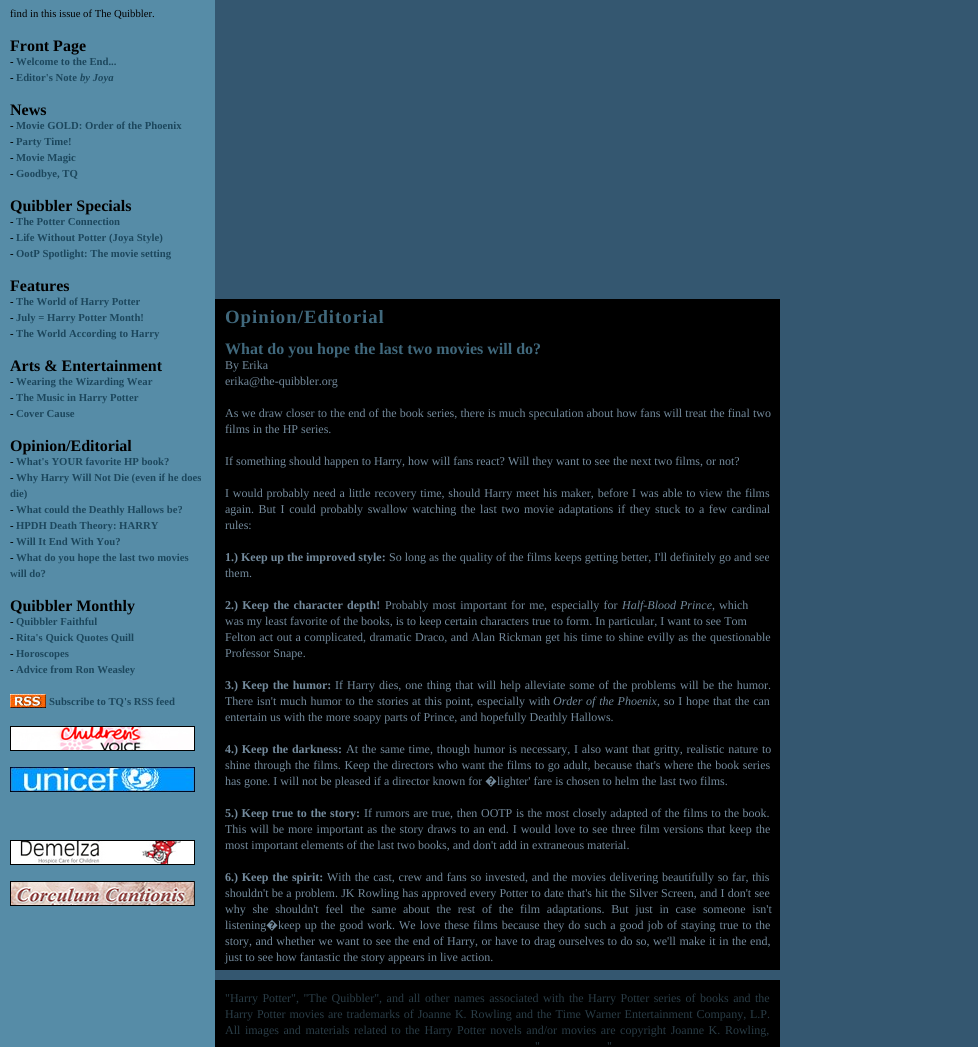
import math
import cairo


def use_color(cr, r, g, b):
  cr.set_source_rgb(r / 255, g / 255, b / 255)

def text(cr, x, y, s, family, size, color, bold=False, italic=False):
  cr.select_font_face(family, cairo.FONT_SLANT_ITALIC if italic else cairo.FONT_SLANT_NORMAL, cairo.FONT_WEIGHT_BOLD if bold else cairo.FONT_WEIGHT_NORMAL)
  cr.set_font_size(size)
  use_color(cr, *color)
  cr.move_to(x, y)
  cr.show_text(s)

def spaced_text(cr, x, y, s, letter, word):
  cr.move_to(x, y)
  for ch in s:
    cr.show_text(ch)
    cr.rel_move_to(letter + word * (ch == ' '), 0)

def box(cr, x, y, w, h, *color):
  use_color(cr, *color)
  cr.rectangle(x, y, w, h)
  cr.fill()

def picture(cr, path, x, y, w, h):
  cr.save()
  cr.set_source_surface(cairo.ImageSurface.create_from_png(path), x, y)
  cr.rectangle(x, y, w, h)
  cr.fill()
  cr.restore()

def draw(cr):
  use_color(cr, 52, 87, 112)
  cr.paint()
  box(cr, 0, 0, 215, 1047, 86, 140, 167)
  picture(cr, "img_01.png", 10, 694, 36, 14)
  picture(cr, "img_02.png", 10, 726, 185, 25)
  picture(cr, "img_03.png", 10, 767, 185, 25)
  picture(cr, "img_04.png", 10, 840, 185, 25)
  picture(cr, "img_05.png", 10, 881, 185, 25)
  box(cr, 215, 299, 565, 671, 0, 0, 0)
  box(cr, 215, 980, 565, 67, 0, 0, 0)
  text(cr, 10, 17, "find in this issue of The Quibbler.", "Liberation Serif", 10.7, (0, 0, 0))
  text(cr, 10, 51, "Front Page", "Liberation Serif", 16, (0, 0, 0), bold=True)
  text(cr, 10, 65, "-", "Liberation Serif", 10.7, (0, 0, 0), bold=True)
  text(cr, 16, 65, "Welcome to the End...", "Liberation Serif", 10.7, (28, 71, 93), bold=True)
  text(cr, 10, 81, "-", "Liberation Serif", 10.7, (0, 0, 0), bold=True)
  text(cr, 16, 81, "Editor's Note", "Liberation Serif", 10.7, (28, 71, 93), bold=True)
  text(cr, 80, 81, "by Joya", "Liberation Serif", 10.7, (28, 71, 93), bold=True, italic=True)
  text(cr, 10, 115, "News", "Liberation Serif", 16, (0, 0, 0), bold=True)
  text(cr, 10, 129, "-", "Liberation Serif", 10.7, (0, 0, 0), bold=True)
  text(cr, 16, 129, "Movie GOLD: Order of the Phoenix", "Liberation Serif", 10.7, (28, 71, 93), bold=True)
  text(cr, 10, 145, "-", "Liberation Serif", 10.7, (0, 0, 0), bold=True)
  text(cr, 16, 145, "Party Time!", "Liberation Serif", 10.7, (28, 71, 93), bold=True)
  text(cr, 10, 161, "-", "Liberation Serif", 10.7, (0, 0, 0), bold=True)
  text(cr, 16, 161, "Movie Magic", "Liberation Serif", 10.7, (28, 71, 93), bold=True)
  text(cr, 10, 177, "-", "Liberation Serif", 10.7, (0, 0, 0), bold=True)
  text(cr, 16, 177, "Goodbye, TQ", "Liberation Serif", 10.7, (28, 71, 93), bold=True)
  text(cr, 10, 211, "Quibbler Specials", "Liberation Serif", 16, (0, 0, 0), bold=True)
  text(cr, 10, 225, "-", "Liberation Serif", 10.7, (0, 0, 0), bold=True)
  text(cr, 16, 225, "The Potter Connection", "Liberation Serif", 10.7, (28, 71, 93), bold=True)
  text(cr, 10, 241, "-", "Liberation Serif", 10.7, (0, 0, 0), bold=True)
  text(cr, 16, 241, "Life Without Potter (Joya Style)", "Liberation Serif", 10.7, (28, 71, 93), bold=True)
  text(cr, 10, 257, "-", "Liberation Serif", 10.7, (0, 0, 0), bold=True)
  text(cr, 16, 257, "OotP Spotlight: The movie setting", "Liberation Serif", 10.7, (28, 71, 93), bold=True)
  text(cr, 10, 291, "Features", "Liberation Serif", 16, (0, 0, 0), bold=True)
  text(cr, 10, 305, "-", "Liberation Serif", 10.7, (0, 0, 0), bold=True)
  text(cr, 16, 305, "The World of Harry Potter", "Liberation Serif", 10.7, (28, 71, 93), bold=True)
  text(cr, 10, 321, "-", "Liberation Serif", 10.7, (0, 0, 0), bold=True)
  text(cr, 16, 321, "July = Harry Potter Month!", "Liberation Serif", 10.7, (28, 71, 93), bold=True)
  text(cr, 10, 337, "-", "Liberation Serif", 10.7, (0, 0, 0), bold=True)
  text(cr, 16, 337, "The World According to Harry", "Liberation Serif", 10.7, (28, 71, 93), bold=True)
  text(cr, 10, 371, "Arts & Entertainment", "Liberation Serif", 16, (0, 0, 0), bold=True)
  text(cr, 10, 385, "-", "Liberation Serif", 10.7, (0, 0, 0), bold=True)
  text(cr, 16, 385, "Wearing the Wizarding Wear", "Liberation Serif", 10.7, (28, 71, 93), bold=True)
  text(cr, 10, 401, "-", "Liberation Serif", 10.7, (0, 0, 0), bold=True)
  text(cr, 16, 401, "The Music in Harry Potter", "Liberation Serif", 10.7, (28, 71, 93), bold=True)
  text(cr, 10, 417, "-", "Liberation Serif", 10.7, (0, 0, 0), bold=True)
  text(cr, 16, 417, "Cover Cause", "Liberation Serif", 10.7, (28, 71, 93), bold=True)
  text(cr, 10, 451, "Opinion/Editorial", "Liberation Serif", 16, (0, 0, 0), bold=True)
  text(cr, 10, 465, "-", "Liberation Serif", 10.7, (0, 0, 0), bold=True)
  text(cr, 16, 465, "What's YOUR favorite HP book?", "Liberation Serif", 10.7, (28, 71, 93), bold=True)
  text(cr, 10, 481, "-", "Liberation Serif", 10.7, (0, 0, 0), bold=True)
  text(cr, 16, 481, "Why Harry Will Not Die (even if he does", "Liberation Serif", 10.7, (28, 71, 93), bold=True)
  text(cr, 10, 497, "die)", "Liberation Serif", 10.7, (28, 71, 93), bold=True)
  text(cr, 10, 513, "-", "Liberation Serif", 10.7, (0, 0, 0), bold=True)
  text(cr, 16, 513, "What could the Deathly Hallows be?", "Liberation Serif", 10.7, (28, 71, 93), bold=True)
  text(cr, 10, 529, "-", "Liberation Serif", 10.7, (0, 0, 0), bold=True)
  text(cr, 16, 529, "HPDH Death Theory: HARRY", "Liberation Serif", 10.7, (28, 71, 93), bold=True)
  text(cr, 10, 545, "-", "Liberation Serif", 10.7, (0, 0, 0), bold=True)
  text(cr, 16, 545, "Will It End With You?", "Liberation Serif", 10.7, (28, 71, 93), bold=True)
  text(cr, 10, 561, "-", "Liberation Serif", 10.7, (0, 0, 0), bold=True)
  text(cr, 16, 561, "What do you hope the last two movies", "Liberation Serif", 10.7, (28, 71, 93), bold=True)
  text(cr, 10, 577, "will do?", "Liberation Serif", 10.7, (28, 71, 93), bold=True)
  text(cr, 10, 611, "Quibbler Monthly", "Liberation Serif", 16, (0, 0, 0), bold=True)
  text(cr, 10, 625, "-", "Liberation Serif", 10.7, (0, 0, 0), bold=True)
  text(cr, 16, 625, "Quibbler Faithful", "Liberation Serif", 10.7, (28, 71, 93), bold=True)
  text(cr, 10, 641, "-", "Liberation Serif", 10.7, (0, 0, 0), bold=True)
  text(cr, 16, 641, "Rita's Quick Quotes Quill", "Liberation Serif", 10.7, (28, 71, 93), bold=True)
  text(cr, 10, 657, "-", "Liberation Serif", 10.7, (0, 0, 0), bold=True)
  text(cr, 16, 657, "Horoscopes", "Liberation Serif", 10.7, (28, 71, 93), bold=True)
  text(cr, 10, 673, "-", "Liberation Serif", 10.7, (0, 0, 0), bold=True)
  text(cr, 16, 673, "Advice from Ron Weasley", "Liberation Serif", 10.7, (28, 71, 93), bold=True)
  text(cr, 49, 705, "Subscribe to TQ's RSS feed", "Liberation Serif", 10.7, (28, 71, 93), bold=True)
  cr.set_font_size(18.75)
  use_color(cr, 64, 104, 124)
  spaced_text(cr, 225, 323, "Opinion/Editorial", 1, 0)
  text(cr, 225, 354, "What do you hope the last two movies will do?", "Liberation Serif", 16, (64, 104, 124), bold=True)
  text(cr, 225, 369, "By Erika", "Liberation Serif", 12, (115, 138, 156))
  text(cr, 225, 385, "erika@the-quibbler.org", "Liberation Serif", 12, (115, 138, 156))
  spaced_text(cr, 225, 417, "As we draw closer to the end of the book series, there is much speculation about how fans will treat the final two", 0, 0.2)
  text(cr, 225, 433, "films in the HP series.", "Liberation Serif", 12, (115, 138, 156))
  text(cr, 225, 465, "If something should happen to Harry, how will fans react? Will they want to see the next two films, or not?", "Liberation Serif", 12, (115, 138, 156))
  spaced_text(cr, 225, 497, "I would probably need a little recovery time, should Harry meet his maker, before I was able to view the films", 0, 0.8)
  spaced_text(cr, 225, 513, "again. But I could probably swallow watching the last two movie adaptations if they stuck to a few cardinal", 0, 1.6)
  text(cr, 225, 529, "rules:", "Liberation Serif", 12, (115, 138, 156))
  text(cr, 225, 561, "1.) Keep up the improved style:", "Liberation Serif", 12, (115, 138, 156), bold=True)
  text(cr, 389, 561, "So long as the quality of the films keeps getting better, I'll definitely go and see", "Liberation Serif", 12, (115, 138, 156))
  text(cr, 225, 577, "them.", "Liberation Serif", 12, (115, 138, 156))
  cr.select_font_face("Liberation Serif", cairo.FONT_SLANT_NORMAL, cairo.FONT_WEIGHT_BOLD)
  spaced_text(cr, 225, 609, "2.) Keep the character depth!", 0, 1.25)
  cr.select_font_face("Liberation Serif")
  spaced_text(cr, 385, 609, "Probably most important for me, especially for", 0, 1.25)
  cr.select_font_face("Liberation Serif", cairo.FONT_SLANT_ITALIC)
  spaced_text(cr, 622, 609, "Half-Blood Prince", 0, 1)
  cr.select_font_face("Liberation Serif")
  spaced_text(cr, 712, 609, ", which", 0, 1)
  text(cr, 225, 625, "was my least favorite of the books, is to keep certain characters true to form. In particular, I want to see Tom", "Liberation Serif", 12, (115, 138, 156))
  spaced_text(cr, 225, 641, "Felton act out a complicated, dramatic Draco, and Alan Rickman get his time to shine evilly as the questionable", 0, 0.5)
  text(cr, 225, 657, "Professor Snape.", "Liberation Serif", 12, (115, 138, 156))
  cr.select_font_face("Liberation Serif", cairo.FONT_SLANT_NORMAL, cairo.FONT_WEIGHT_BOLD)
  spaced_text(cr, 225, 689, "3.) Keep the humor:", 0, 1)
  cr.select_font_face("Liberation Serif")
  spaced_text(cr, 335, 689, "If Harry dies, one thing that will help alleviate some of the problems will be the humor.", 0, 1)
  spaced_text(cr, 225, 705, "There isn't much humor to the stories at this point, especially with", 0, 0.75)
  cr.select_font_face("Liberation Serif", cairo.FONT_SLANT_ITALIC)
  spaced_text(cr, 553, 705, "Order of the Phoenix", 0, 0.75)
  cr.select_font_face("Liberation Serif")
  spaced_text(cr, 657, 705, ", so I hope that the can", 0, 0.75)
  text(cr, 225, 721, "entertain us with the more soapy parts of Prince, and hopefully Deathly Hallows.", "Liberation Serif", 12, (115, 138, 156))
  cr.select_font_face("Liberation Serif", cairo.FONT_SLANT_NORMAL, cairo.FONT_WEIGHT_BOLD)
  spaced_text(cr, 225, 753, "4.) Keep the darkness:", 0, 0.75)
  cr.select_font_face("Liberation Serif")
  spaced_text(cr, 346, 753, "At the same time, though humor is necessary, I also want that gritty, realistic nature to", 0, 0.75)
  spaced_text(cr, 225, 769, "shine through the films. Keep the directors who want the films to go adult, because that's where the book series", 0, 0.6)
  text(cr, 225, 785, "has gone. I will not be pleased if a director known for", "Liberation Serif", 12, (115, 138, 156))
  text(cr, 485, 785, "�", "Noto Sans", 12, (115, 138, 156))
  text(cr, 497, 785, "lighter' fare is chosen to helm the last two films.", "Liberation Serif", 12, (115, 138, 156))
  cr.select_font_face("Liberation Serif", cairo.FONT_SLANT_NORMAL, cairo.FONT_WEIGHT_BOLD)
  spaced_text(cr, 225, 817, "5.) Keep true to the story:", 0, 0.6)
  cr.select_font_face("Liberation Serif")
  spaced_text(cr, 364, 817, "If rumors are true, then OOTP is the most closely adapted of the films to the book.", 0, 0.6)
  spaced_text(cr, 225, 833, "This will be more important as the story draws to an end. I would love to see three film versions that keep the", 0, 0.9)
  text(cr, 225, 849, "most important elements of the last two books, and don't add in extraneous material.", "Liberation Serif", 12, (115, 138, 156))
  cr.select_font_face("Liberation Serif", cairo.FONT_SLANT_NORMAL, cairo.FONT_WEIGHT_BOLD)
  spaced_text(cr, 225, 881, "6.) Keep the spirit:", 0, 0.75)
  cr.select_font_face("Liberation Serif")
  spaced_text(cr, 327, 881, "With the cast, crew and fans so invested, and the movies delivering beautifully so far, this", 0, 0.75)
  spaced_text(cr, 225, 897, "shouldn't be a problem. JK Rowling has approved every Potter to date that's hit the Silver Screen, and I don't see", 0, 0.25)
  spaced_text(cr, 225, 913, "why she shouldn't feel the same about the rest of the film adaptations. But just in case someone isn't", 0, 3.75)
  text(cr, 225, 929, "listening", "Liberation Serif", 12, (115, 138, 156))
  text(cr, 266, 929, "�", "Noto Sans", 12, (115, 138, 156))
  cr.select_font_face("Liberation Serif")
  spaced_text(cr, 278, 929, "keep up the good work. We love these films because they do such a good job of staying true to the", 0, 1)
  spaced_text(cr, 225, 945, "story, and whether we want to see the end of Harry, or have to drag ourselves to do so, we'll make it in the end,", 0, 0.5)
  text(cr, 225, 961, "just to see how fantastic the story appears in live action.", "Liberation Serif", 12, (115, 138, 156))
  use_color(cr, 41, 60, 70)
  spaced_text(cr, 225, 1002, "\"Harry Potter\", \"The Quibbler\", and all other names associated with the Harry Potter series of books and the", 0, 1.5)
  spaced_text(cr, 225, 1018, "Harry Potter movies are trademarks of Joanne K. Rowling and the Time Warner Entertainment Company, L.P.", 0, 0.9)
  spaced_text(cr, 225, 1034, "All images and materials related to the Harry Potter novels and/or movies are copyright Joanne K. Rowling,", 0, 1.6)
  spaced_text(cr, 535, 1050, "\"", 0, 2)
  spaced_text(cr, 607, 1050, "\"", 0, 2)


surface = cairo.ImageSurface(cairo.FORMAT_RGB24, 978, 1047)
cr = cairo.Context(surface)
options = cairo.FontOptions()
options.set_hint_metrics(cairo.HINT_METRICS_OFF)
options.set_hint_style(cairo.HINT_STYLE_NONE)
cr.set_font_options(options)
cr.set_miter_limit(4)
draw(cr)
surface.write_to_png("out.png")
